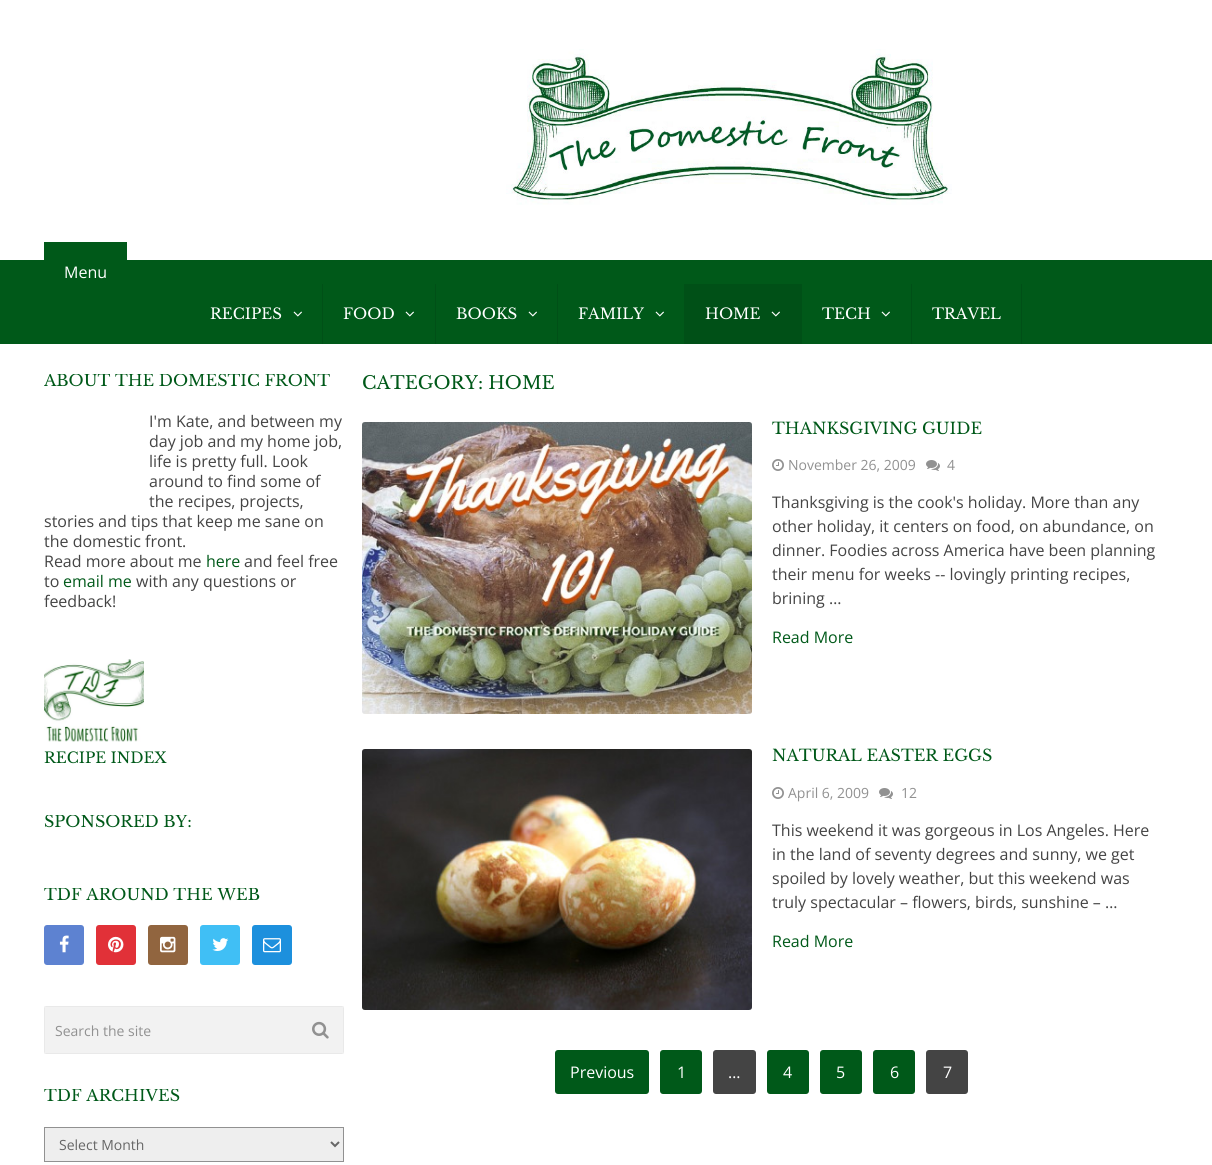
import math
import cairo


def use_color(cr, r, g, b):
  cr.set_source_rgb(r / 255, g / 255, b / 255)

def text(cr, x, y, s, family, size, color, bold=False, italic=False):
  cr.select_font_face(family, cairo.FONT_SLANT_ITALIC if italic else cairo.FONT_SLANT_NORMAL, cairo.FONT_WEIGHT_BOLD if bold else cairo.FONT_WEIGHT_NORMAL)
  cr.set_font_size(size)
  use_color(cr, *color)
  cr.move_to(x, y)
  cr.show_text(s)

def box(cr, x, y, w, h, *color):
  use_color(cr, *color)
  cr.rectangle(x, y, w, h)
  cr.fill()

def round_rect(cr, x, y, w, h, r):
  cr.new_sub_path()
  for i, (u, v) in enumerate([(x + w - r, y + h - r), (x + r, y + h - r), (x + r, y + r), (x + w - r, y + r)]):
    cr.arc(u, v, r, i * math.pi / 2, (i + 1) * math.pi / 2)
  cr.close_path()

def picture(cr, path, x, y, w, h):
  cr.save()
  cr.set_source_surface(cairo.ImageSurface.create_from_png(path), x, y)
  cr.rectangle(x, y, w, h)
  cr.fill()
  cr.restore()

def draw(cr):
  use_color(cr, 255, 255, 255)
  cr.paint()
  picture(cr, "img_01.png", 506, 49, 446, 156)
  box(cr, 0, 260, 1212, 84, 0, 89, 25)
  box(cr, 44, 242, 83, 18, 0, 89, 25)
  box(cr, 322, 284, 1, 60, 0, 80, 23)
  picture(cr, "img_02.png", 293, 311, 9, 6)
  box(cr, 435, 284, 1, 60, 0, 80, 23)
  picture(cr, "img_02.png", 405, 311, 9, 6)
  box(cr, 557, 284, 1, 60, 0, 80, 23)
  picture(cr, "img_02.png", 528, 311, 9, 6)
  box(cr, 684, 284, 1, 60, 0, 80, 23)
  picture(cr, "img_02.png", 655, 311, 9, 6)
  box(cr, 685, 284, 117, 60, 0, 80, 23)
  picture(cr, "img_03.png", 771, 311, 9, 6)
  box(cr, 911, 284, 1, 60, 0, 80, 23)
  picture(cr, "img_02.png", 881, 311, 9, 6)
  box(cr, 1021, 284, 1, 60, 0, 80, 23)
  picture(cr, "img_04.png", 44, 659, 100, 83)
  use_color(cr, 93, 130, 209)
  round_rect(cr, 44, 925, 40, 40, 3)
  cr.fill()
  picture(cr, "img_05.png", 59, 935, 10, 18)
  use_color(cr, 225, 49, 56)
  round_rect(cr, 96, 925, 40, 40, 3)
  cr.fill()
  picture(cr, "img_06.png", 108, 936, 16, 17)
  use_color(cr, 145, 101, 63)
  round_rect(cr, 148, 925, 40, 40, 3)
  cr.fill()
  picture(cr, "img_07.png", 160, 936, 16, 17)
  use_color(cr, 64, 191, 245)
  round_rect(cr, 200, 925, 40, 40, 3)
  cr.fill()
  picture(cr, "img_08.png", 212, 938, 17, 13)
  use_color(cr, 29, 144, 221)
  round_rect(cr, 252, 925, 40, 40, 3)
  cr.fill()
  picture(cr, "img_09.png", 263, 938, 18, 15)
  use_color(cr, 242, 242, 242)
  round_rect(cr, 44, 1006, 300, 48, 3)
  cr.fill()
  cr.rectangle(44.5, 1006.5, 299, 47)
  cr.set_source_rgba(0, 0, 0, 0.04)
  cr.set_line_width(1)
  cr.stroke()
  picture(cr, "img_10.png", 312, 1021, 17, 18)
  use_color(cr, 238, 238, 238)
  cr.rectangle(44.5, 1127.5, 299, 34)
  cr.fill_preserve()
  use_color(cr, 145, 145, 145)
  cr.stroke()
  cr.new_path()
  cr.move_to(331, 1142)
  cr.line_to(335, 1146)
  cr.line_to(339, 1142)
  use_color(cr, 102, 102, 102)
  cr.set_line_width(2)
  cr.stroke()
  picture(cr, "img_11.png", 362, 422, 390, 292)
  picture(cr, "img_12.png", 772, 459, 12, 12)
  picture(cr, "img_13.png", 926, 460, 14, 11)
  picture(cr, "img_14.png", 362, 749, 390, 261)
  picture(cr, "img_12.png", 772, 787, 12, 12)
  picture(cr, "img_13.png", 879, 788, 14, 11)
  use_color(cr, 0, 89, 25)
  round_rect(cr, 555, 1050, 94, 44, 3)
  cr.fill()
  round_rect(cr, 660, 1050, 42, 44, 3)
  cr.fill()
  use_color(cr, 68, 68, 68)
  round_rect(cr, 713, 1050, 43, 44, 3)
  cr.fill()
  use_color(cr, 0, 89, 25)
  round_rect(cr, 767, 1050, 42, 44, 3)
  cr.fill()
  round_rect(cr, 820, 1050, 42, 44, 3)
  cr.fill()
  round_rect(cr, 873, 1050, 42, 44, 3)
  cr.fill()
  use_color(cr, 68, 68, 68)
  round_rect(cr, 926, 1050, 42, 44, 3)
  cr.fill()
  text(cr, 64, 278, "Menu", "Open Sans", 16, (255, 255, 255))
  text(cr, 210, 319, "RECIPES", "Libre Baskerville", 15, (255, 255, 255))
  text(cr, 343, 319, "FOOD", "Libre Baskerville", 15, (255, 255, 255))
  text(cr, 456, 319, "BOOKS", "Libre Baskerville", 15, (255, 255, 255))
  text(cr, 578, 319, "FAMILY", "Libre Baskerville", 15, (255, 255, 255))
  text(cr, 705, 319, "HOME", "Libre Baskerville", 15, (255, 255, 255))
  text(cr, 822, 319, "TECH", "Libre Baskerville", 15, (255, 255, 255))
  text(cr, 932, 319, "TRAVEL", "Libre Baskerville", 15, (255, 255, 255))
  cr.save()
  cr.rectangle(44, 374, 300, 237)
  cr.clip()
  text(cr, 44, 386, "ABOUT THE DOMESTIC FRONT", "Libre Baskerville", 16, (0, 89, 25))
  cr.restore()
  text(cr, 149, 427, "I'm Kate, and between my", "Open Sans", 16, (68, 68, 68))
  text(cr, 149, 447, "day job and my home job,", "Open Sans", 16, (68, 68, 68))
  text(cr, 149, 467, "life is pretty full. Look", "Open Sans", 16, (68, 68, 68))
  text(cr, 149, 487, "around to find some of", "Open Sans", 16, (68, 68, 68))
  text(cr, 149, 507, "the recipes, projects,", "Open Sans", 16, (68, 68, 68))
  text(cr, 44, 527, "stories and tips that keep me sane on", "Open Sans", 16, (68, 68, 68))
  text(cr, 44, 547, "the domestic front.", "Open Sans", 16, (68, 68, 68))
  text(cr, 44, 567, "Read more about me", "Open Sans", 16, (68, 68, 68))
  text(cr, 206, 567, "here", "Open Sans", 16, (0, 89, 25))
  text(cr, 244, 567, "and feel free", "Open Sans", 16, (68, 68, 68))
  text(cr, 44, 587, "to", "Open Sans", 16, (68, 68, 68))
  text(cr, 63, 587, "email me", "Open Sans", 16, (0, 89, 25))
  text(cr, 136, 587, "with any questions or", "Open Sans", 16, (68, 68, 68))
  text(cr, 44, 607, "feedback!", "Open Sans", 16, (68, 68, 68))
  text(cr, 44, 763, "RECIPE INDEX", "Libre Baskerville", 15, (0, 89, 25))
  cr.save()
  cr.rectangle(44, 815, 300, 38)
  cr.clip()
  text(cr, 44, 827, "SPONSORED BY:", "Libre Baskerville", 16, (0, 89, 25))
  cr.restore()
  cr.save()
  cr.rectangle(44, 888, 300, 83)
  cr.clip()
  text(cr, 44, 900, "TDF AROUND THE WEB", "Libre Baskerville", 16, (0, 89, 25))
  cr.restore()
  text(cr, 55, 1036, "Search the site", "Open Sans", 14, (145, 145, 145))
  cr.save()
  cr.rectangle(44, 1089, 300, 73)
  cr.clip()
  text(cr, 44, 1101, "TDF ARCHIVES", "Libre Baskerville", 16, (0, 89, 25))
  cr.restore()
  text(cr, 59, 1150, "Select Month", "Open Sans", 14, (102, 102, 102))
  text(cr, 362, 389, "CATEGORY: HOME", "Libre Baskerville", 18, (0, 89, 25))
  text(cr, 772, 434, "THANKSGIVING GUIDE", "Libre Baskerville", 16, (0, 89, 25))
  text(cr, 788, 470, "November 26, 2009", "Open Sans", 14, (145, 145, 145))
  text(cr, 947, 470, "4", "Open Sans", 14, (145, 145, 145))
  text(cr, 772, 508, "Thanksgiving is the cook's holiday. More than any", "Open Sans", 16, (68, 68, 68))
  text(cr, 772, 532, "other holiday, it centers on food, on abundance, on", "Open Sans", 16, (68, 68, 68))
  text(cr, 772, 556, "dinner. Foodies across America have been planning", "Open Sans", 16, (68, 68, 68))
  text(cr, 772, 580, "their menu for weeks -- lovingly printing recipes,", "Open Sans", 16, (68, 68, 68))
  text(cr, 772, 604, "brining …", "Open Sans", 16, (68, 68, 68))
  text(cr, 772, 643, "Read More", "Open Sans", 16, (0, 89, 25))
  text(cr, 772, 761, "NATURAL EASTER EGGS", "Libre Baskerville", 16, (0, 89, 25))
  text(cr, 788, 798, "April 6, 2009", "Open Sans", 14, (145, 145, 145))
  text(cr, 901, 798, "12", "Open Sans", 14, (145, 145, 145))
  text(cr, 772, 836, "This weekend it was gorgeous in Los Angeles. Here", "Open Sans", 16, (68, 68, 68))
  text(cr, 772, 860, "in the land of seventy degrees and sunny, we get", "Open Sans", 16, (68, 68, 68))
  text(cr, 772, 884, "spoiled by lovely weather, but this weekend was", "Open Sans", 16, (68, 68, 68))
  text(cr, 772, 908, "truly spectacular – flowers, birds, sunshine – …", "Open Sans", 16, (68, 68, 68))
  text(cr, 772, 947, "Read More", "Open Sans", 16, (0, 89, 25))
  text(cr, 570, 1078, "Previous", "Open Sans", 16, (255, 255, 255))
  text(cr, 677, 1078, "1", "Open Sans", 16, (255, 255, 255))
  text(cr, 728, 1078, "…", "Open Sans", 16, (255, 255, 255))
  text(cr, 783, 1078, "4", "Open Sans", 16, (255, 255, 255))
  text(cr, 836, 1078, "5", "Open Sans", 16, (255, 255, 255))
  text(cr, 890, 1078, "6", "Open Sans", 16, (255, 255, 255))
  text(cr, 943, 1078, "7", "Open Sans", 16, (255, 255, 255))


surface = cairo.ImageSurface(cairo.FORMAT_RGB24, 1212, 1165)
cr = cairo.Context(surface)
options = cairo.FontOptions()
options.set_hint_metrics(cairo.HINT_METRICS_OFF)
options.set_hint_style(cairo.HINT_STYLE_NONE)
cr.set_font_options(options)
cr.set_miter_limit(4)
draw(cr)
surface.write_to_png("out.png")
